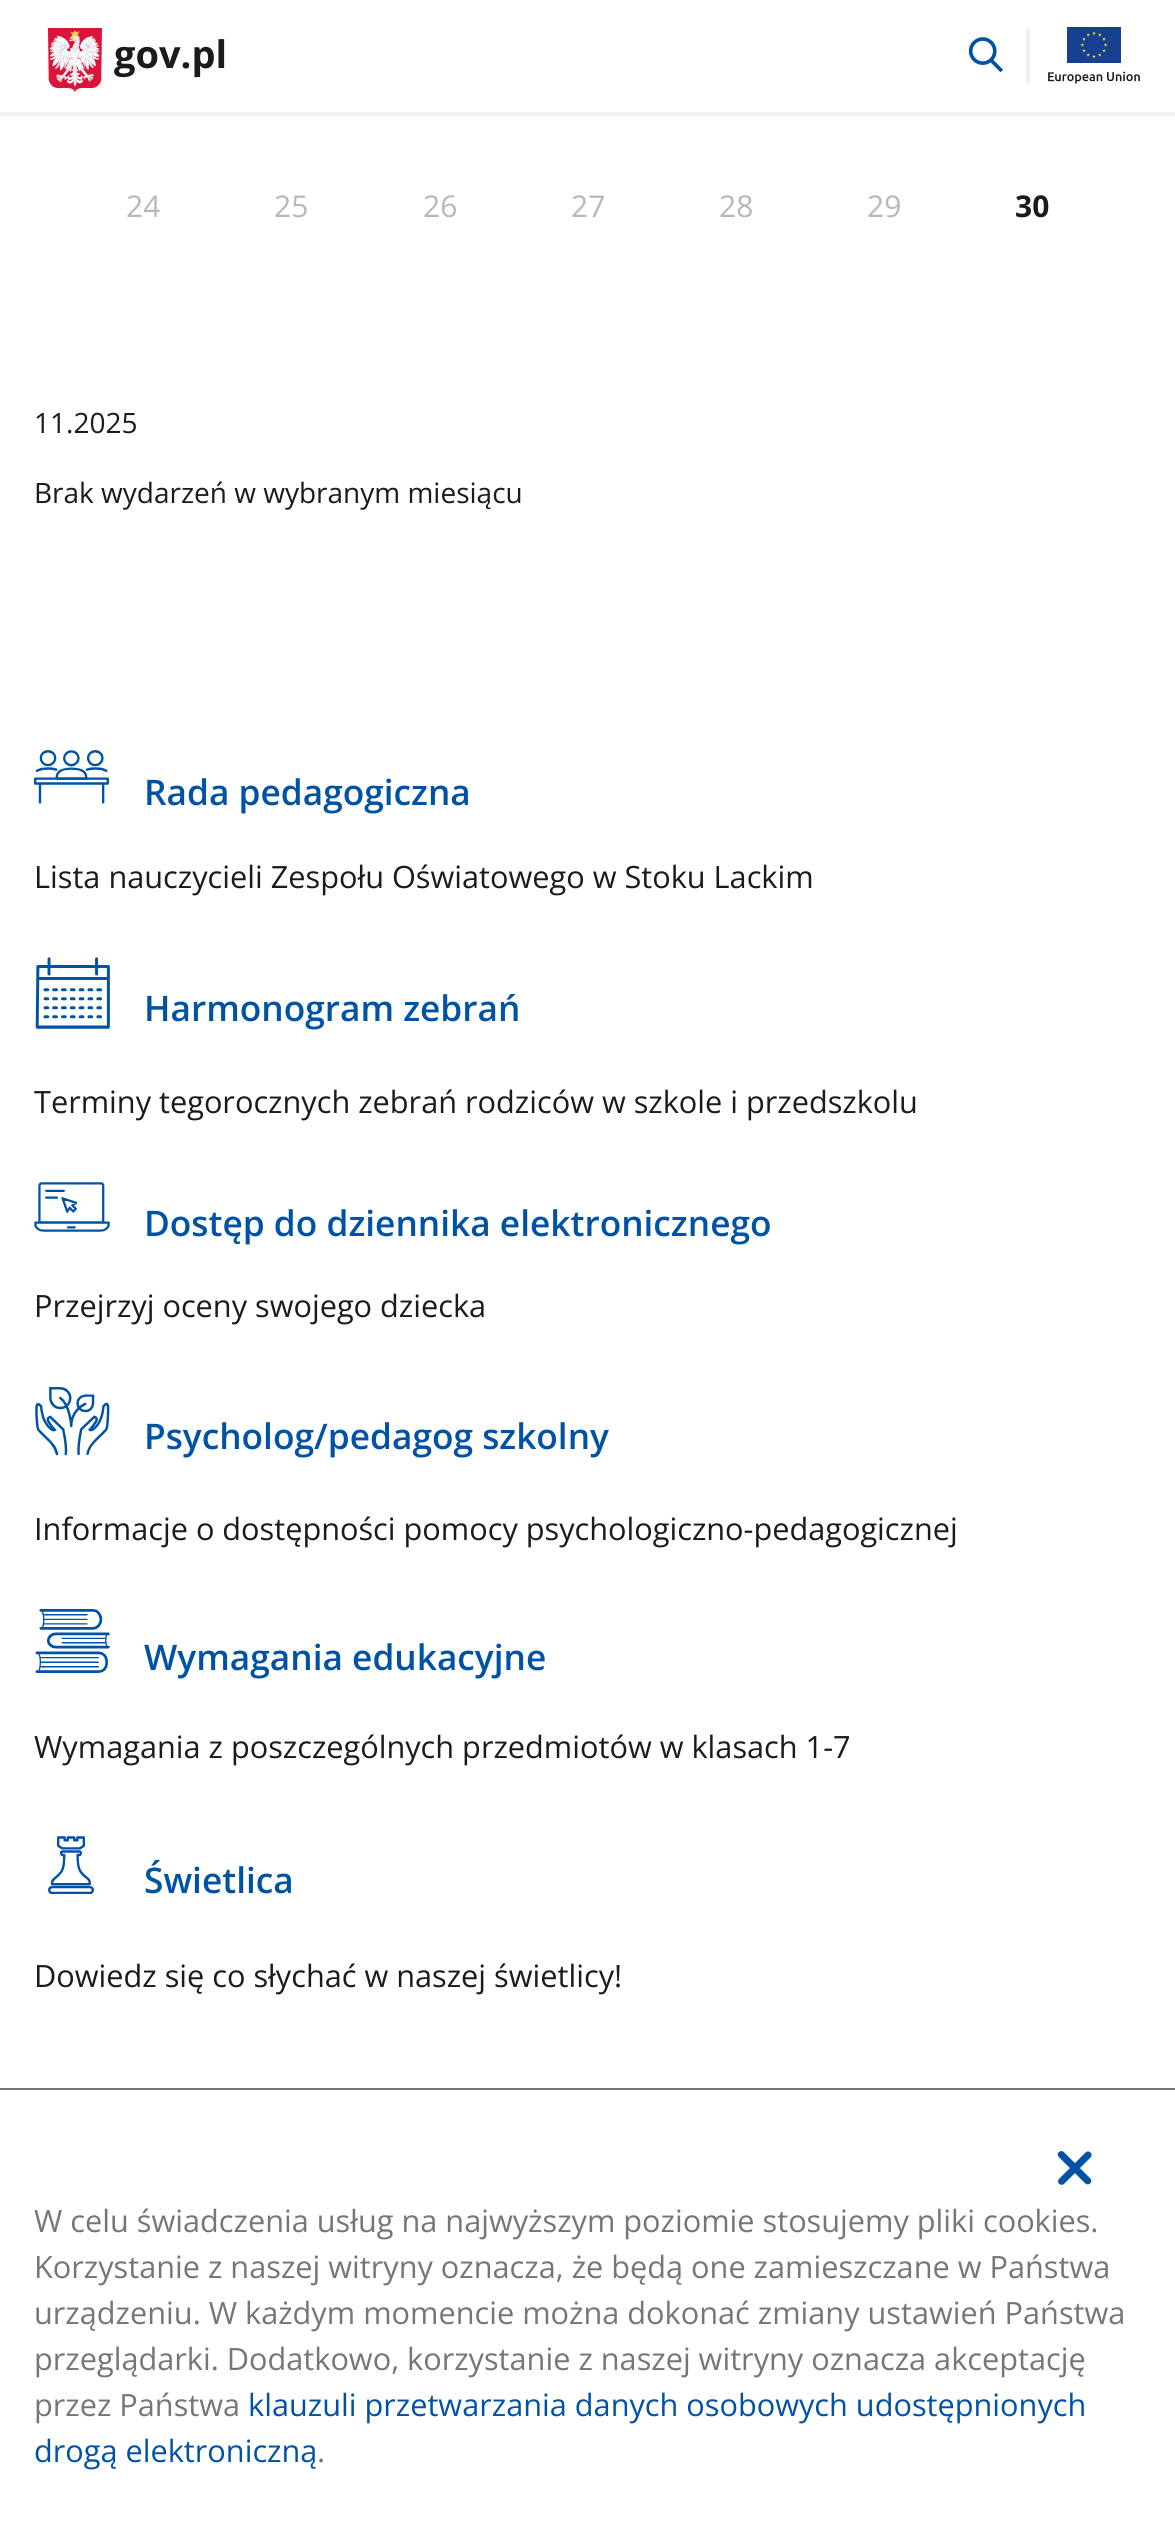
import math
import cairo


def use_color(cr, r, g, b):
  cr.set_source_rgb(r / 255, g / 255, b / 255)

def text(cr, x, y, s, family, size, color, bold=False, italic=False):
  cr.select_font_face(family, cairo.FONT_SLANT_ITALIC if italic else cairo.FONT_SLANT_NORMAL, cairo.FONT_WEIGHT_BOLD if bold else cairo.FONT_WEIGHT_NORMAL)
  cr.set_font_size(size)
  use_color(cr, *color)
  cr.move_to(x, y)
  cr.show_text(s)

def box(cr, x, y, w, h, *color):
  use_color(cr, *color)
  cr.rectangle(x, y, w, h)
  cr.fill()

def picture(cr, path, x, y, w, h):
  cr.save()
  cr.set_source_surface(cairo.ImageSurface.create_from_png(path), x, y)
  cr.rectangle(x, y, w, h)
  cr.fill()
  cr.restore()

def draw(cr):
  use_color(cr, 255, 255, 255)
  cr.paint()
  box(cr, 0, 112, 1175, 4, 241, 241, 241)
  picture(cr, "img_01.png", 48, 28, 54, 64)
  picture(cr, "img_02.png", 968, 37, 36, 36)
  box(cr, 1026, 28, 4, 56, 241, 241, 241)
  picture(cr, "img_03.png", 1048, 27, 92, 57)
  picture(cr, "img_04.png", 34, 750, 75, 54)
  picture(cr, "img_05.png", 35, 957, 75, 72)
  picture(cr, "img_06.png", 34, 1182, 76, 50)
  picture(cr, "img_07.png", 35, 1387, 75, 69)
  picture(cr, "img_08.png", 35, 1609, 75, 64)
  picture(cr, "img_09.png", 48, 1836, 46, 58)
  box(cr, 0, 2088, 1175, 2, 118, 118, 118)
  picture(cr, "img_10.png", 1057, 2151, 35, 34)
  text(cr, 114, 68, "gov.pl", "Open Sans", 38, (27, 27, 27), bold=True)
  text(cr, 126, 217, "24", "Open Sans", 30, (183, 183, 183))
  text(cr, 274, 217, "25", "Open Sans", 30, (183, 183, 183))
  text(cr, 423, 217, "26", "Open Sans", 30, (183, 183, 183))
  text(cr, 571, 217, "27", "Open Sans", 30, (183, 183, 183))
  text(cr, 719, 217, "28", "Open Sans", 30, (183, 183, 183))
  text(cr, 867, 217, "29", "Open Sans", 30, (183, 183, 183))
  text(cr, 1015, 217, "30", "Open Sans", 30, (27, 27, 27), bold=True)
  text(cr, 34, 433, "11.2025", "Open Sans", 28, (27, 27, 27))
  text(cr, 34, 503, "Brak wydarzeń w wybranym miesiącu", "Open Sans", 28, (27, 27, 27))
  text(cr, 144, 805, "Rada pedagogiczna", "Open Sans SemiBold", 35.25, (0, 82, 165))
  text(cr, 34, 888, "Lista nauczycieli Zespołu Oświatowego w Stoku Lackim", "Open Sans", 30.7, (27, 27, 27))
  text(cr, 144, 1021, "Harmonogram zebrań", "Open Sans SemiBold", 35.25, (0, 82, 165))
  text(cr, 34, 1113, "Terminy tegorocznych zebrań rodziców w szkole i przedszkolu", "Open Sans", 30.7, (27, 27, 27))
  text(cr, 144, 1236, "Dostęp do dziennika elektronicznego", "Open Sans SemiBold", 35.25, (0, 82, 165))
  text(cr, 34, 1317, "Przejrzyj oceny swojego dziecka", "Open Sans", 30.7, (27, 27, 27))
  text(cr, 144, 1449, "Psycholog/pedagog szkolny", "Open Sans SemiBold", 35.25, (0, 82, 165))
  text(cr, 34, 1540, "Informacje o dostępności pomocy psychologiczno-pedagogicznej", "Open Sans", 30.7, (27, 27, 27))
  text(cr, 144, 1670, "Wymagania edukacyjne", "Open Sans SemiBold", 35.25, (0, 82, 165))
  text(cr, 34, 1758, "Wymagania z poszczególnych przedmiotów w klasach 1-7", "Open Sans", 30.7, (27, 27, 27))
  text(cr, 144, 1893, "Świetlica", "Open Sans SemiBold", 35.25, (0, 82, 165))
  text(cr, 34, 1987, "Dowiedz się co słychać w naszej świetlicy!", "Open Sans", 30.7, (27, 27, 27))
  text(cr, 34, 2232, "W celu świadczenia usług na najwyższym poziomie stosujemy pliki cookies.", "Open Sans", 30.7, (118, 118, 118))
  text(cr, 34, 2278, "Korzystanie z naszej witryny oznacza, że będą one zamieszczane w Państwa", "Open Sans", 30.7, (118, 118, 118))
  text(cr, 34, 2324, "urządzeniu. W każdym momencie można dokonać zmiany ustawień Państwa", "Open Sans", 30.7, (118, 118, 118))
  text(cr, 34, 2370, "przeglądarki. Dodatkowo, korzystanie z naszej witryny oznacza akceptację", "Open Sans", 30.7, (118, 118, 118))
  text(cr, 34, 2416, "przez Państwa", "Open Sans", 30.7, (118, 118, 118))
  text(cr, 248, 2416, "klauzuli przetwarzania danych osobowych udostępnionych", "Open Sans", 30.7, (0, 82, 165))
  text(cr, 34, 2462, "drogą elektroniczną", "Open Sans", 30.7, (0, 82, 165))
  text(cr, 317, 2462, ".", "Open Sans", 30.7, (118, 118, 118))


surface = cairo.ImageSurface(cairo.FORMAT_RGB24, 1175, 2529)
cr = cairo.Context(surface)
options = cairo.FontOptions()
options.set_hint_metrics(cairo.HINT_METRICS_OFF)
options.set_hint_style(cairo.HINT_STYLE_NONE)
cr.set_font_options(options)
cr.set_miter_limit(4)
draw(cr)
surface.write_to_png("out.png")
